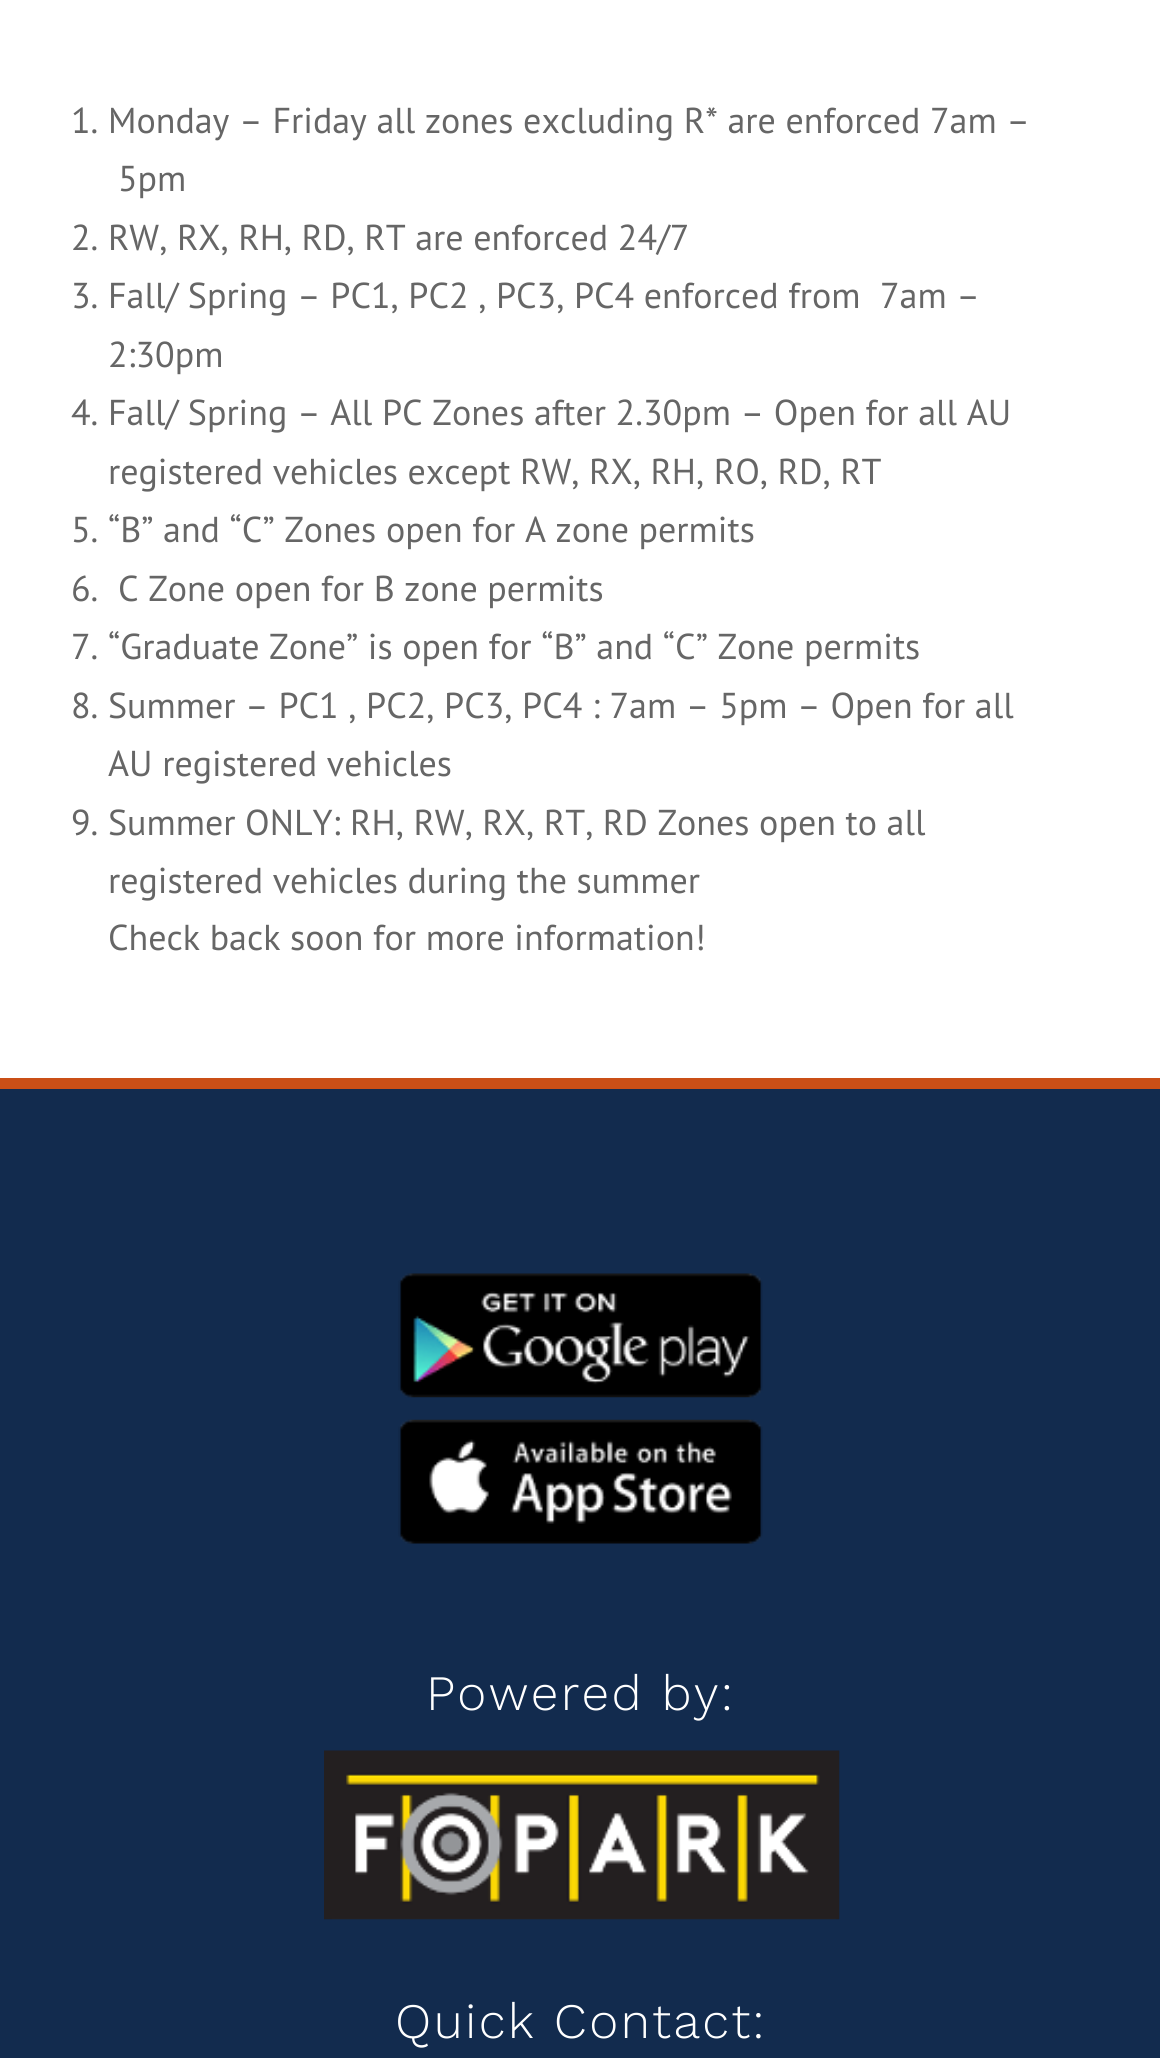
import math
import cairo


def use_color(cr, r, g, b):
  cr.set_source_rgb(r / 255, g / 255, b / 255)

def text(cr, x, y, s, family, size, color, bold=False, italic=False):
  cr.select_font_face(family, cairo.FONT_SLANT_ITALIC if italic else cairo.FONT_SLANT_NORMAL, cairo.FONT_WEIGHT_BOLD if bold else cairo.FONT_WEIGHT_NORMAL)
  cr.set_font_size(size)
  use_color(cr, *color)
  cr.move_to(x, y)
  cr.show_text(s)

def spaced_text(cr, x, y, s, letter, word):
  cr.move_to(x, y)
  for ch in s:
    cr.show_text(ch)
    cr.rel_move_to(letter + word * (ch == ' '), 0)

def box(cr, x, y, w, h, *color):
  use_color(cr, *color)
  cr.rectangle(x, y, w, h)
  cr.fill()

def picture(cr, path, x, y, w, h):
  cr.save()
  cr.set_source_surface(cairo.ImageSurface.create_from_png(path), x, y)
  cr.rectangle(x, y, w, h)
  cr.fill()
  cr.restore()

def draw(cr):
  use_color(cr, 255, 255, 255)
  cr.paint()
  box(cr, 0, 1089, 1160, 969, 18, 43, 78)
  box(cr, 0, 1078, 1160, 11, 202, 79, 23)
  picture(cr, "img_01.png", 398, 1273, 365, 125)
  picture(cr, "img_02.png", 398, 1419, 365, 125)
  picture(cr, "img_03.png", 324, 1750, 516, 170)
  text(cr, 71, 133, "1. Monday – Friday all zones excluding R* are enforced 7am –", "PT Sans", 36, (102, 102, 102))
  text(cr, 118, 191, "5pm", "PT Sans", 36, (102, 102, 102))
  text(cr, 71, 250, "2. RW, RX, RH, RD, RT are enforced 24/7", "PT Sans", 36, (102, 102, 102))
  text(cr, 71, 308, "3. Fall/ Spring – PC1, PC2 , PC3, PC4 enforced from", "PT Sans", 36, (102, 102, 102))
  text(cr, 880, 308, "7am –", "PT Sans", 36, (102, 102, 102))
  text(cr, 108, 367, "2:30pm", "PT Sans", 36, (102, 102, 102))
  text(cr, 71, 425, "4. Fall/ Spring – All PC Zones after 2.30pm – Open for all AU", "PT Sans", 36, (102, 102, 102))
  text(cr, 108, 484, "registered vehicles except RW, RX, RH, RO, RD, RT", "PT Sans", 36, (102, 102, 102))
  text(cr, 71, 542, "5. “B” and “C” Zones open for A zone permits", "PT Sans", 36, (102, 102, 102))
  text(cr, 71, 601, "6.", "PT Sans", 36, (102, 102, 102))
  text(cr, 118, 601, "C Zone open for B zone permits", "PT Sans", 36, (102, 102, 102))
  text(cr, 71, 659, "7. “Graduate Zone” is open for “B” and “C” Zone permits", "PT Sans", 36, (102, 102, 102))
  text(cr, 71, 718, "8. Summer – PC1 , PC2, PC3, PC4 : 7am – 5pm – Open for all", "PT Sans", 36, (102, 102, 102))
  text(cr, 108, 776, "AU registered vehicles", "PT Sans", 36, (102, 102, 102))
  text(cr, 71, 835, "9. Summer ONLY: RH, RW, RX, RT, RD Zones open to all", "PT Sans", 36, (102, 102, 102))
  text(cr, 108, 893, "registered vehicles during the summer", "PT Sans", 36, (102, 102, 102))
  text(cr, 108, 950, "Check back soon for more information!", "PT Sans", 36, (102, 102, 102))
  cr.select_font_face("Work Sans Light")
  cr.set_font_size(49.5)
  use_color(cr, 255, 255, 255)
  spaced_text(cr, 426, 1710, "Powered by:", 2.25, 0)
  spaced_text(cr, 395, 2038, "Quick Contact:", 2.25, 0)


surface = cairo.ImageSurface(cairo.FORMAT_RGB24, 1160, 2058)
cr = cairo.Context(surface)
options = cairo.FontOptions()
options.set_hint_metrics(cairo.HINT_METRICS_OFF)
options.set_hint_style(cairo.HINT_STYLE_NONE)
cr.set_font_options(options)
cr.set_miter_limit(4)
draw(cr)
surface.write_to_png("out.png")
